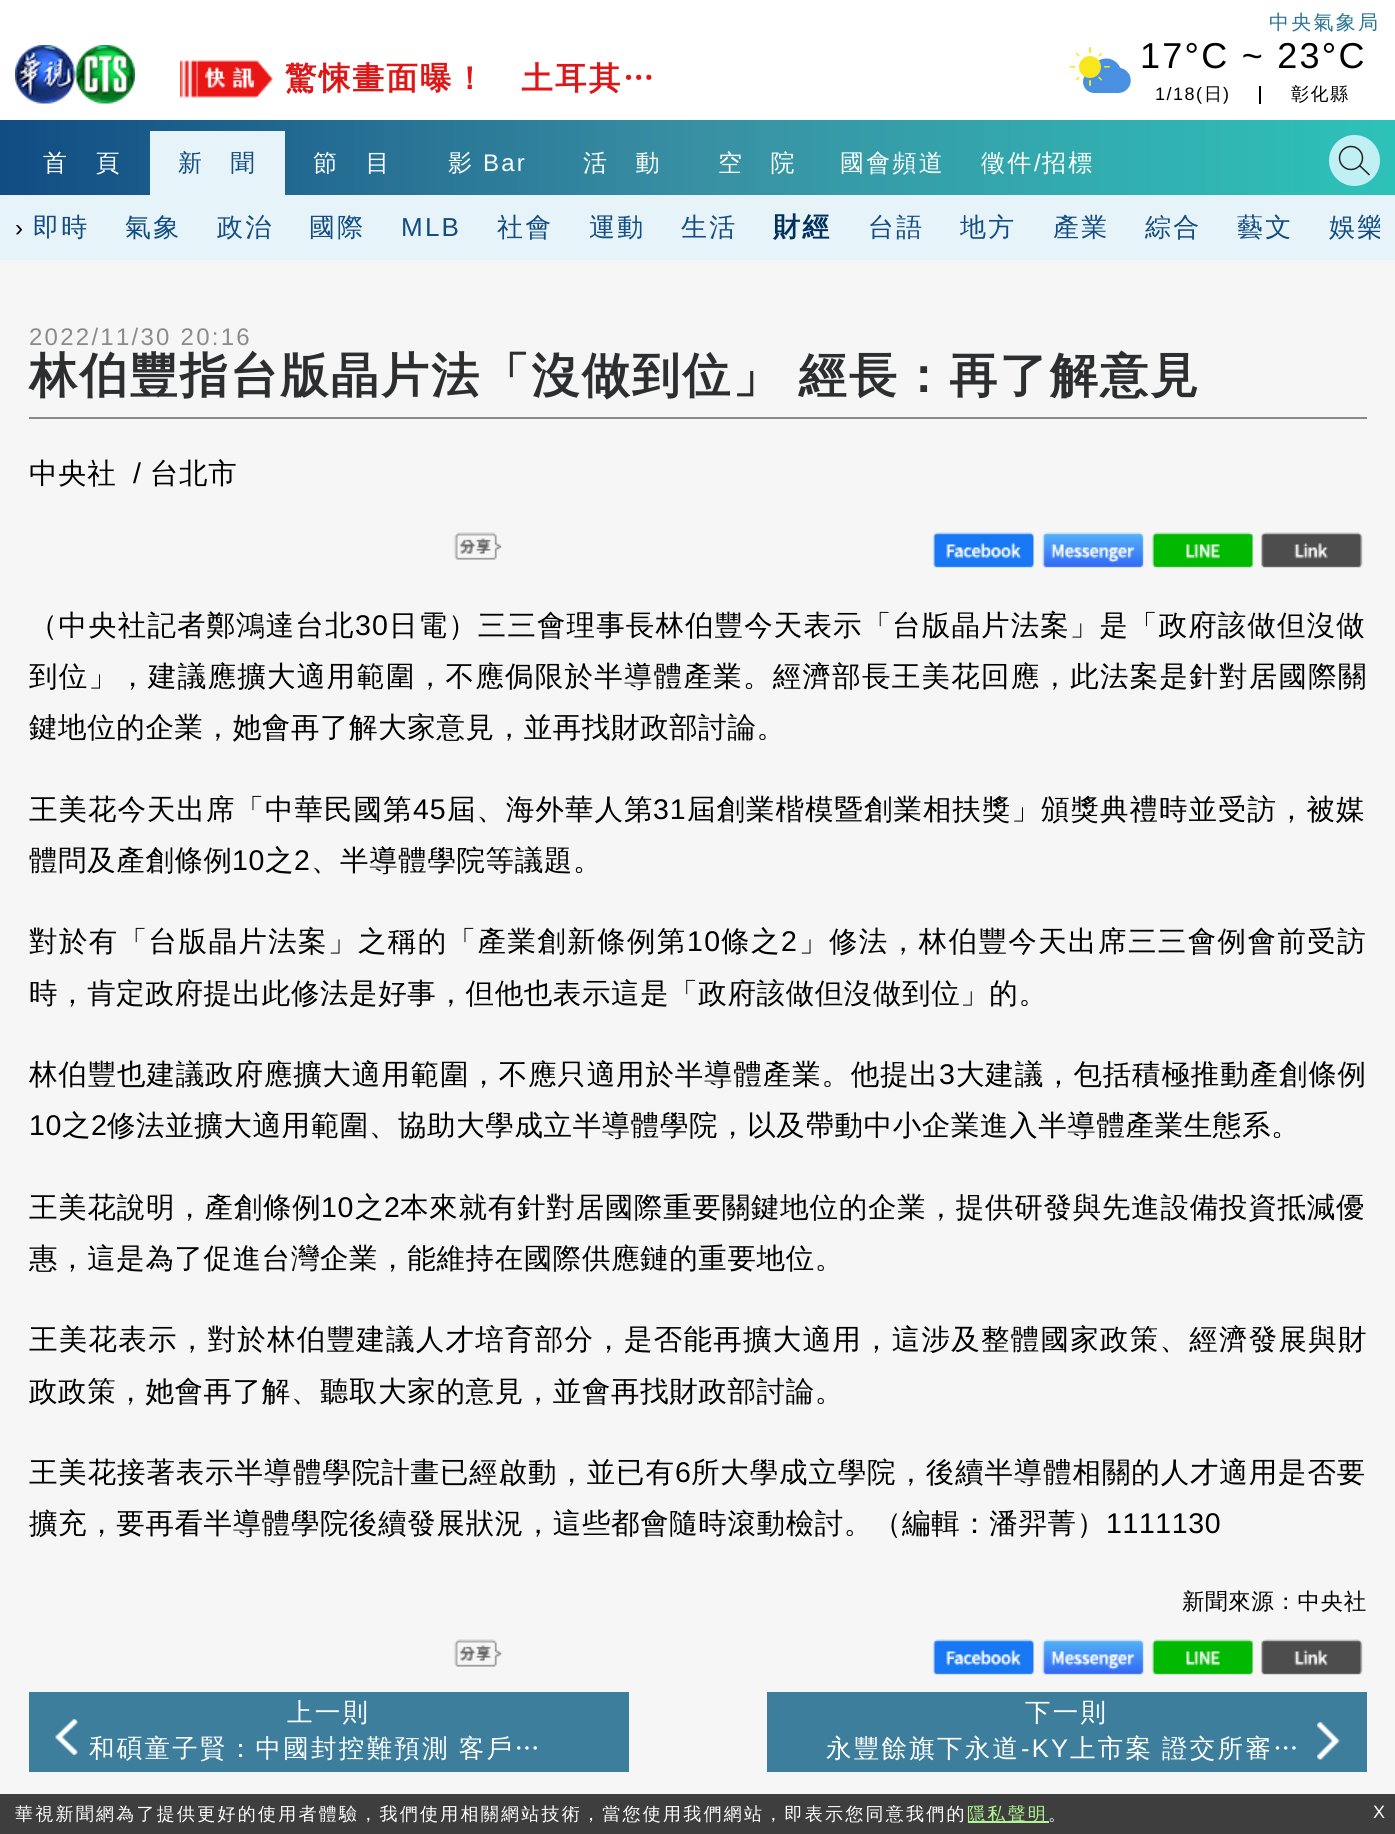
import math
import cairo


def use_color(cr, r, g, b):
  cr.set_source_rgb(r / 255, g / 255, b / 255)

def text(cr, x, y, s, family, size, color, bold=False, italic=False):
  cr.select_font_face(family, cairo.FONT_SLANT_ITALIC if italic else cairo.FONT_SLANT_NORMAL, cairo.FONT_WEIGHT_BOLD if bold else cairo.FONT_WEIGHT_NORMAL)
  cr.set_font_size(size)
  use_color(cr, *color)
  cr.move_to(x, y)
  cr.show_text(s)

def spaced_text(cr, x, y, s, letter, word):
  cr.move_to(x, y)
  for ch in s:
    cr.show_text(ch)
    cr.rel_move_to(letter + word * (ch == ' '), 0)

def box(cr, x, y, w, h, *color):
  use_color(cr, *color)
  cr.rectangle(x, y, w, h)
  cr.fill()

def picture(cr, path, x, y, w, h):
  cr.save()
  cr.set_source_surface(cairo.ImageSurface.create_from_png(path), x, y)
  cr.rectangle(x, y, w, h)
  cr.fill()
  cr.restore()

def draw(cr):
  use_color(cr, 255, 255, 255)
  cr.paint()
  picture(cr, "img_01.png", 15, 45, 120, 59)
  picture(cr, "img_02.png", 180, 60, 93, 38)
  picture(cr, "img_03.png", 1069, 47, 62, 46)
  box(cr, 1259, 86, 2, 18, 0, 0, 0)
  gradient = cairo.LinearGradient(0, 158, 1395, 157)
  gradient.add_color_stop_rgba(0, 0.067, 0.298, 0.514, 1)
  gradient.add_color_stop_rgba(0.5, 0.22, 0.565, 0.639, 1)
  gradient.add_color_stop_rgba(1, 0.176, 0.761, 0.725, 1)
  cr.set_source(gradient)
  cr.rectangle(0, 120, 1395, 75)
  cr.fill()
  box(cr, 150, 131, 135, 64, 230, 243, 249)
  use_color(cr, 193, 240, 244)
  cr.arc(1354.5, 160.5, 25.5, 0, 2 * math.pi)
  cr.fill()
  cr.arc(1351, 158, 11.5, 0, 2 * math.pi)
  use_color(cr, 33, 33, 33)
  cr.set_line_width(1.5)
  cr.stroke()
  cr.new_path()
  cr.move_to(1359.5, 165.5)
  cr.line_to(1369.5, 175)
  cr.stroke()
  box(cr, 0, 195, 1395, 65, 230, 243, 249)
  box(cr, 0, 260, 1395, 1534, 246, 246, 246)
  box(cr, 29, 417, 1338, 2, 137, 137, 137)
  picture(cr, "img_04.png", 454, 532, 48, 28)
  picture(cr, "img_05.png", 932, 532, 102, 36)
  picture(cr, "img_06.png", 1042, 532, 102, 36)
  picture(cr, "img_07.png", 1151, 532, 102, 36)
  picture(cr, "img_08.png", 1261, 532, 102, 36)
  picture(cr, "img_04.png", 454, 1639, 48, 28)
  picture(cr, "img_05.png", 932, 1639, 102, 36)
  picture(cr, "img_06.png", 1042, 1639, 102, 36)
  picture(cr, "img_07.png", 1151, 1639, 102, 36)
  picture(cr, "img_08.png", 1261, 1639, 102, 36)
  box(cr, 29, 1692, 600, 80, 60, 126, 156)
  picture(cr, "img_09.png", 55, 1719, 23, 36)
  box(cr, 767, 1692, 600, 80, 60, 126, 156)
  picture(cr, "img_10.png", 1317, 1722, 23, 38)
  box(cr, 0, 1794, 1395, 40, 62, 62, 62)
  box(cr, 968, 1821, 81, 2, 177, 246, 148)
  cr.select_font_face("WenQuanYi Zen Hei", cairo.FONT_SLANT_NORMAL, cairo.FONT_WEIGHT_BOLD)
  cr.set_font_size(31.5)
  use_color(cr, 221, 23, 23)
  spaced_text(cr, 285, 89, "驚悚畫面曝！　土耳其…", 2.25, 0)
  cr.select_font_face("WenQuanYi Zen Hei Medium")
  cr.set_font_size(20)
  use_color(cr, 41, 117, 150)
  spaced_text(cr, 1269, 29, "中央氣象局", 2.25, 0)
  cr.select_font_face("Liberation Sans")
  cr.set_font_size(36)
  use_color(cr, 0, 0, 0)
  spaced_text(cr, 1140, 68, "17°C ~ 23°C", 2.25, 0)
  cr.set_font_size(18)
  spaced_text(cr, 1155, 100, "1/18(", 1.5, 0)
  cr.select_font_face("WenQuanYi Zen Hei Medium")
  spaced_text(cr, 1204, 100, "日", 1.5, 0)
  cr.select_font_face("Liberation Sans")
  spaced_text(cr, 1223, 100, ")", 1.5, 0)
  cr.select_font_face("WenQuanYi Zen Hei Medium")
  spaced_text(cr, 1291, 100, "彰化縣", 1.5, 0)
  cr.set_font_size(24)
  use_color(cr, 255, 255, 255)
  spaced_text(cr, 43, 171, "首　頁", 2.25, 0)
  use_color(cr, 17, 76, 131)
  spaced_text(cr, 178, 171, "新　聞", 2.25, 0)
  use_color(cr, 255, 255, 255)
  spaced_text(cr, 313, 171, "節　目", 2.25, 0)
  spaced_text(cr, 448, 171, "影", 2.25, 0)
  cr.select_font_face("Liberation Sans")
  spaced_text(cr, 483, 171, "Bar", 2.25, 0)
  cr.select_font_face("WenQuanYi Zen Hei Medium")
  spaced_text(cr, 583, 171, "活　動", 2.25, 0)
  spaced_text(cr, 718, 171, "空　院", 2.25, 0)
  spaced_text(cr, 840, 171, "國會頻道", 2.25, 0)
  spaced_text(cr, 981, 171, "徵件", 2.25, 0)
  cr.select_font_face("Liberation Sans")
  spaced_text(cr, 1034, 171, "/", 2.25, 0)
  cr.select_font_face("WenQuanYi Zen Hei Medium")
  spaced_text(cr, 1042, 171, "招標", 2.25, 0)
  text(cr, 15, 236, "›", "Liberation Sans", 24, (0, 0, 0))
  cr.select_font_face("WenQuanYi Zen Hei Medium")
  cr.set_font_size(26)
  use_color(cr, 17, 76, 131)
  spaced_text(cr, 33, 236, "即時", 2.25, 0)
  spaced_text(cr, 125, 236, "氣象", 2.25, 0)
  spaced_text(cr, 217, 236, "政治", 2.25, 0)
  spaced_text(cr, 309, 236, "國際", 2.25, 0)
  cr.select_font_face("Liberation Sans")
  spaced_text(cr, 401, 236, "MLB", 2.25, 0)
  cr.select_font_face("WenQuanYi Zen Hei Medium")
  spaced_text(cr, 497, 236, "社會", 2.25, 0)
  spaced_text(cr, 589, 236, "運動", 2.25, 0)
  spaced_text(cr, 681, 236, "生活", 2.25, 0)
  cr.select_font_face("WenQuanYi Zen Hei", cairo.FONT_SLANT_NORMAL, cairo.FONT_WEIGHT_BOLD)
  cr.set_font_size(27)
  use_color(cr, 0, 49, 94)
  spaced_text(cr, 773, 236, "財經", 2.25, 0)
  cr.select_font_face("WenQuanYi Zen Hei Medium")
  cr.set_font_size(26)
  use_color(cr, 17, 76, 131)
  spaced_text(cr, 868, 236, "台語", 2.25, 0)
  spaced_text(cr, 960, 236, "地方", 2.25, 0)
  spaced_text(cr, 1053, 236, "產業", 2.25, 0)
  spaced_text(cr, 1145, 236, "綜合", 2.25, 0)
  spaced_text(cr, 1237, 236, "藝文", 2.25, 0)
  cr.save()
  cr.rectangle(15, 195, 1365, 65)
  cr.clip()
  spaced_text(cr, 1329, 236, "娛樂", 2.25, 0)
  cr.restore()
  cr.select_font_face("Liberation Sans")
  cr.set_font_size(24)
  use_color(cr, 138, 140, 139)
  spaced_text(cr, 29, 345, "2022/11/30 20:16", 2.25, 0)
  cr.select_font_face("WenQuanYi Zen Hei", cairo.FONT_SLANT_NORMAL, cairo.FONT_WEIGHT_BOLD)
  cr.set_font_size(48)
  use_color(cr, 45, 46, 47)
  spaced_text(cr, 29, 392, "林伯豐指台版晶片法「沒做到位」 經長：再了解意見", 2.25, -1)
  cr.select_font_face("WenQuanYi Zen Hei Medium")
  cr.set_font_size(28.5)
  use_color(cr, 0, 0, 0)
  spaced_text(cr, 29, 483, "中央社", 0.6, 0)
  cr.select_font_face("Liberation Sans")
  spaced_text(cr, 133, 483, "/", 0.6, 0)
  cr.select_font_face("WenQuanYi Zen Hei Medium")
  spaced_text(cr, 150, 483, "台北市", 0.6, 0)
  spaced_text(cr, 29, 635, "（中央社記者鄭鴻達台北", 1.1, 0)
  cr.select_font_face("Liberation Sans")
  spaced_text(cr, 355, 635, "30", 1.1, 0)
  cr.select_font_face("WenQuanYi Zen Hei Medium")
  spaced_text(cr, 389, 635, "日電）三三會理事長林伯豐今天表示「台版晶片法案」是「政府該做但沒做", 1.1, 0)
  spaced_text(cr, 29, 686, "到位」，建議應擴大適用範圍，不應侷限於半導體產業。經濟部長王美花回應，此法案是針對居國際關", 1.25, 0)
  spaced_text(cr, 29, 737, "鍵地位的企業，她會再了解大家意見，並再找財政部討論。", 0.6, 0)
  spaced_text(cr, 29, 819, "王美花今天出席「中華民國第", 1, 0)
  cr.select_font_face("Liberation Sans")
  spaced_text(cr, 413, 819, "45", 1, 0)
  cr.select_font_face("WenQuanYi Zen Hei Medium")
  spaced_text(cr, 447, 819, "屆、海外華人第", 1, 0)
  cr.select_font_face("Liberation Sans")
  spaced_text(cr, 653, 819, "31", 1, 0)
  cr.select_font_face("WenQuanYi Zen Hei Medium")
  spaced_text(cr, 687, 819, "屆創業楷模暨創業相扶獎」頒獎典禮時並受訪，被媒", 1, 0)
  spaced_text(cr, 29, 870, "體問及產創條例", 0.6, 0)
  cr.select_font_face("Liberation Sans")
  spaced_text(cr, 232, 870, "10", 0.6, 0)
  cr.select_font_face("WenQuanYi Zen Hei Medium")
  spaced_text(cr, 265, 870, "之", 0.6, 0)
  cr.select_font_face("Liberation Sans")
  spaced_text(cr, 294, 870, "2", 0.6, 0)
  cr.select_font_face("WenQuanYi Zen Hei Medium")
  spaced_text(cr, 311, 870, "、半導體學院等議題。", 0.6, 0)
  spaced_text(cr, 29, 951, "對於有「台版晶片法案」之稱的「產業創新條例第", 1.4, 0)
  cr.select_font_face("Liberation Sans")
  spaced_text(cr, 687, 951, "10", 1.4, 0)
  cr.select_font_face("WenQuanYi Zen Hei Medium")
  spaced_text(cr, 721, 951, "條之", 1.4, 0)
  cr.select_font_face("Liberation Sans")
  spaced_text(cr, 781, 951, "2", 1.4, 0)
  cr.select_font_face("WenQuanYi Zen Hei Medium")
  spaced_text(cr, 799, 951, "」修法，林伯豐今天出席三三會例會前受訪", 1.4, 0)
  spaced_text(cr, 29, 1003, "時，肯定政府提出此修法是好事，但他也表示這是「政府該做但沒做到位」的。", 0.6, 0)
  spaced_text(cr, 29, 1084, "林伯豐也建議政府應擴大適用範圍，不應只適用於半導體產業。他提出", 0.85, 0)
  cr.select_font_face("Liberation Sans")
  spaced_text(cr, 939, 1084, "3", 0.85, 0)
  cr.select_font_face("WenQuanYi Zen Hei Medium")
  spaced_text(cr, 956, 1084, "大建議，包括積極推動產創條例", 0.85, 0)
  cr.select_font_face("Liberation Sans")
  spaced_text(cr, 29, 1135, "10", 0.6, 0)
  cr.select_font_face("WenQuanYi Zen Hei Medium")
  spaced_text(cr, 62, 1135, "之", 0.6, 0)
  cr.select_font_face("Liberation Sans")
  spaced_text(cr, 91, 1135, "2", 0.6, 0)
  cr.select_font_face("WenQuanYi Zen Hei Medium")
  spaced_text(cr, 107, 1135, "修法並擴大適用範圍、協助大學成立半導體學院，以及帶動中小企業進入半導體產業生態系。", 0.6, 0)
  spaced_text(cr, 29, 1217, "王美花說明，產創條例", 0.75, 0)
  cr.select_font_face("Liberation Sans")
  spaced_text(cr, 321, 1217, "10", 0.75, 0)
  cr.select_font_face("WenQuanYi Zen Hei Medium")
  spaced_text(cr, 355, 1217, "之", 0.75, 0)
  cr.select_font_face("Liberation Sans")
  spaced_text(cr, 384, 1217, "2", 0.75, 0)
  cr.select_font_face("WenQuanYi Zen Hei Medium")
  spaced_text(cr, 400, 1217, "本來就有針對居國際重要關鍵地位的企業，提供研發與先進設備投資抵減優", 0.75, 0)
  spaced_text(cr, 29, 1268, "惠，這是為了促進台灣企業，能維持在國際供應鏈的重要地位。", 0.6, 0)
  spaced_text(cr, 29, 1349, "王美花表示，對於林伯豐建議人才培育部分，是否能再擴大適用，這涉及整體國家政策、經濟發展與財", 1.25, 0)
  spaced_text(cr, 29, 1401, "政政策，她會再了解、聽取大家的意見，並會再找財政部討論。", 0.6, 0)
  spaced_text(cr, 29, 1482, "王美花接著表示半導體學院計畫已經啟動，並已有", 0.85, 0)
  cr.select_font_face("Liberation Sans")
  spaced_text(cr, 675, 1482, "6", 0.85, 0)
  cr.select_font_face("WenQuanYi Zen Hei Medium")
  spaced_text(cr, 691, 1482, "所大學成立學院，後續半導體相關的人才適用是否要", 0.85, 0)
  spaced_text(cr, 29, 1533, "擴充，要再看半導體學院後續發展狀況，這些都會隨時滾動檢討。（編輯：潘羿菁）", 0.6, 0)
  cr.select_font_face("Liberation Sans")
  spaced_text(cr, 1106, 1533, "1111130", 0.6, 0)
  cr.select_font_face("WenQuanYi Zen Hei Medium")
  cr.set_font_size(22.5)
  spaced_text(cr, 1182, 1609, "新聞來源：中央社", 0.6, 0)
  cr.set_font_size(25.5)
  use_color(cr, 255, 255, 255)
  spaced_text(cr, 287, 1721, "上一則", 2.25, 0)
  spaced_text(cr, 89, 1757, "和碩童子賢：中國封控難預測 客戶…", 2.25, -1)
  spaced_text(cr, 1025, 1721, "下一則", 2.25, 0)
  spaced_text(cr, 826, 1757, "永豐餘旗下永道", 2.25, 0)
  cr.select_font_face("Liberation Sans")
  spaced_text(cr, 1021, 1757, "-KY", 2.25, 0)
  cr.select_font_face("WenQuanYi Zen Hei Medium")
  spaced_text(cr, 1070, 1757, "上市案", 2.25, 0)
  spaced_text(cr, 1162, 1757, "證交所審…", 2.25, 0)
  cr.set_font_size(18)
  spaced_text(cr, 15, 1820, "華視新聞網為了提供更好的使用者體驗，我們使用相關網站技術，當您使用我們網站，即表示您同意我們的", 2.25, 0)
  use_color(cr, 177, 246, 148)
  spaced_text(cr, 967, 1820, "隱私聲明", 2.25, 0)
  cr.select_font_face("Liberation Sans")
  use_color(cr, 255, 255, 255)
  spaced_text(cr, 1373, 1818, "X", 2.25, 0)
  cr.select_font_face("WenQuanYi Zen Hei Medium")
  spaced_text(cr, 1048, 1820, "。", 2.25, 0)


surface = cairo.ImageSurface(cairo.FORMAT_RGB24, 1395, 1834)
cr = cairo.Context(surface)
options = cairo.FontOptions()
options.set_hint_metrics(cairo.HINT_METRICS_OFF)
options.set_hint_style(cairo.HINT_STYLE_NONE)
cr.set_font_options(options)
cr.set_miter_limit(4)
draw(cr)
surface.write_to_png("out.png")
